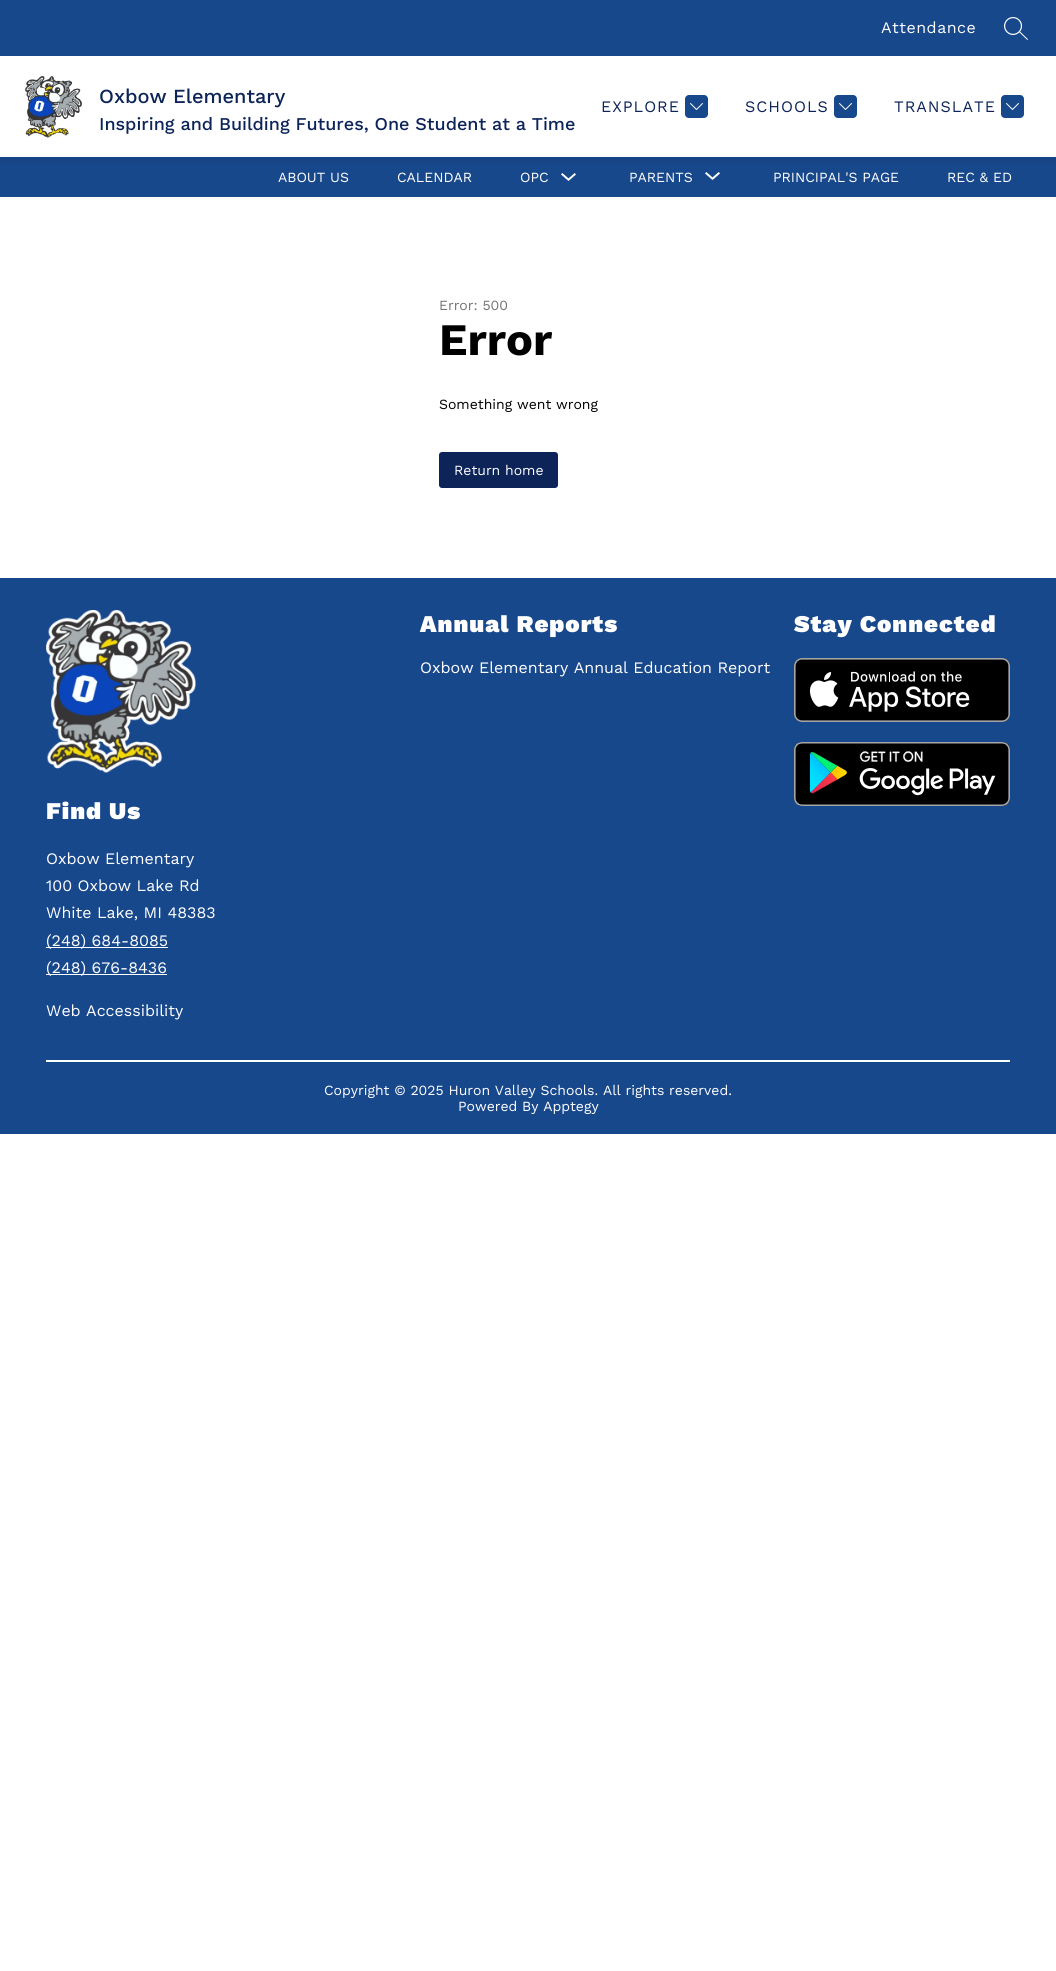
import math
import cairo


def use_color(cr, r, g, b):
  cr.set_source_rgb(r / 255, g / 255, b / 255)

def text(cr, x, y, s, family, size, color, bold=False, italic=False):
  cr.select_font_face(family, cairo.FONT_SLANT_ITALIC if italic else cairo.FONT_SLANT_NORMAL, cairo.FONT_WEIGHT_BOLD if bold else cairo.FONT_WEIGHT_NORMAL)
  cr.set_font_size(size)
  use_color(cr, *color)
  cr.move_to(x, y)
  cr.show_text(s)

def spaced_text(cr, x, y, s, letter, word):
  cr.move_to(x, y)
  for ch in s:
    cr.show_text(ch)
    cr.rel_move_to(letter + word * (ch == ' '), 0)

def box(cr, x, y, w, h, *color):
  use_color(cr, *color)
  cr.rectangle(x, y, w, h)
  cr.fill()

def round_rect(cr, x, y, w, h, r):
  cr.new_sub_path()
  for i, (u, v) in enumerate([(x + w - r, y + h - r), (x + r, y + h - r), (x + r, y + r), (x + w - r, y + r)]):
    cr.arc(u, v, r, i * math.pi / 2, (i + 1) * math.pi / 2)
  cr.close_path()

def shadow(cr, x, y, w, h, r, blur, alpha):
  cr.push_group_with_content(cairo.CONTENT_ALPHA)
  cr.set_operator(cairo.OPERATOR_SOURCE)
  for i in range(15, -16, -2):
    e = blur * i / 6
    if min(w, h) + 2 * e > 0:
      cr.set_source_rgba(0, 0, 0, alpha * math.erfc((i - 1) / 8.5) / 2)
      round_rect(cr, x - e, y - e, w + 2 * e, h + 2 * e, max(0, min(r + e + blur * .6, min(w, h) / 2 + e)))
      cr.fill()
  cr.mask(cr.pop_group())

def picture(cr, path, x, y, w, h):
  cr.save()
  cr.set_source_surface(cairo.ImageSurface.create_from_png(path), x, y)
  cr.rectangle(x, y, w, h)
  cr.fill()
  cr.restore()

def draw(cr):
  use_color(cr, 255, 255, 255)
  cr.paint()
  box(cr, 0, 157, 1056, 40, 24, 72, 140)
  picture(cr, "img_04.png", 561, 173, 15, 8)
  picture(cr, "img_04.png", 705, 172, 15, 8)
  cr.save()
  cr.rectangle(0, 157, 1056, 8)
  cr.clip()
  use_color(cr, 0, 0, 0)
  shadow(cr, 0, 4, 1056, 157, 0, 5, 0.1)
  cr.restore()
  box(cr, 0, 0, 1056, 56, 24, 72, 140)
  picture(cr, "img_01.png", 1004, 17, 24, 23)
  picture(cr, "img_02.png", 24, 75, 59, 63)
  picture(cr, "img_03.png", 685, 95, 23, 23)
  picture(cr, "img_03.png", 834, 95, 23, 23)
  picture(cr, "img_03.png", 1001, 95, 23, 23)
  use_color(cr, 13, 36, 89)
  round_rect(cr, 439, 452, 119, 36, 3)
  cr.fill()
  box(cr, 0, 578, 1056, 556, 24, 72, 140)
  picture(cr, "img_05.png", 794, 658, 216, 64)
  picture(cr, "img_06.png", 794, 742, 216, 64)
  picture(cr, "img_07.png", 46, 610, 150, 163)
  box(cr, 46, 947, 122, 1, 255, 255, 255)
  box(cr, 46, 974, 121, 1, 255, 255, 255)
  box(cr, 46, 1060, 964, 2, 255, 255, 255)
  cr.select_font_face("Work Sans")
  cr.set_font_size(16)
  spaced_text(cr, 881, 33, "Attendance", 0.5, 0)
  text(cr, 99, 103, "Oxbow Elementary", "Work Sans Medium", 20, (13, 36, 89))
  text(cr, 99, 130, "Inspiring and Building Futures, One Student at a Time", "Work Sans Medium", 18, (13, 36, 89))
  cr.select_font_face("Work Sans")
  cr.set_font_size(16)
  spaced_text(cr, 601, 112, "EXPLORE", 1, 0)
  spaced_text(cr, 745, 112, "SCHOOLS", 1, 0)
  spaced_text(cr, 894, 112, "TRANSLATE", 1, 0)
  text(cr, 278, 182, "ABOUT US", "Work Sans", 14, (255, 255, 255))
  text(cr, 397, 182, "CALENDAR", "Work Sans", 14, (255, 255, 255))
  text(cr, 520, 182, "OPC", "Work Sans", 14, (255, 255, 255))
  text(cr, 629, 182, "PARENTS", "Work Sans", 14, (255, 255, 255))
  text(cr, 773, 182, "PRINCIPAL'S PAGE", "Work Sans", 14, (255, 255, 255))
  text(cr, 947, 182, "REC & ED", "Work Sans", 14, (255, 255, 255))
  text(cr, 439, 310, "Error: 500", "Work Sans", 14, (116, 116, 116))
  text(cr, 439, 355, "Error", "Work Sans", 45, (0, 0, 0), bold=True)
  text(cr, 439, 409, "Something went wrong", "Work Sans", 14, (0, 0, 0))
  text(cr, 454, 475, "Return home", "Work Sans", 14, (255, 255, 255))
  cr.select_font_face("Work Sans Black")
  cr.set_font_size(24)
  spaced_text(cr, 420, 632, "Annual Reports", 1, 0)
  text(cr, 420, 673, "Oxbow Elementary Annual Education Report", "Work Sans", 16, (255, 255, 255))
  cr.select_font_face("Work Sans Black")
  cr.set_font_size(24)
  spaced_text(cr, 794, 632, "Stay Connected", 1, 0)
  spaced_text(cr, 46, 819, "Find Us", 1, 0)
  text(cr, 46, 864, "Oxbow Elementary", "Work Sans", 16, (255, 255, 255))
  text(cr, 46, 891, "100 Oxbow Lake Rd", "Work Sans", 16, (255, 255, 255))
  text(cr, 46, 918, "White Lake, MI 48383", "Work Sans", 16, (255, 255, 255))
  text(cr, 46, 946, "(248) 684-8085", "Work Sans", 16, (255, 255, 255))
  text(cr, 46, 973, "(248) 676-8436", "Work Sans", 16, (255, 255, 255))
  text(cr, 46, 1016, "Web Accessibility", "Work Sans", 16, (255, 255, 255))
  text(cr, 324, 1095, "Copyright © 2025 Huron Valley Schools. All rights reserved.", "Work Sans", 14, (255, 255, 255))
  text(cr, 458, 1111, "Powered By Apptegy", "Work Sans", 14, (255, 255, 255))


surface = cairo.ImageSurface(cairo.FORMAT_RGB24, 1056, 1971)
cr = cairo.Context(surface)
options = cairo.FontOptions()
options.set_hint_metrics(cairo.HINT_METRICS_OFF)
options.set_hint_style(cairo.HINT_STYLE_NONE)
cr.set_font_options(options)
cr.set_miter_limit(4)
draw(cr)
surface.write_to_png("out.png")
